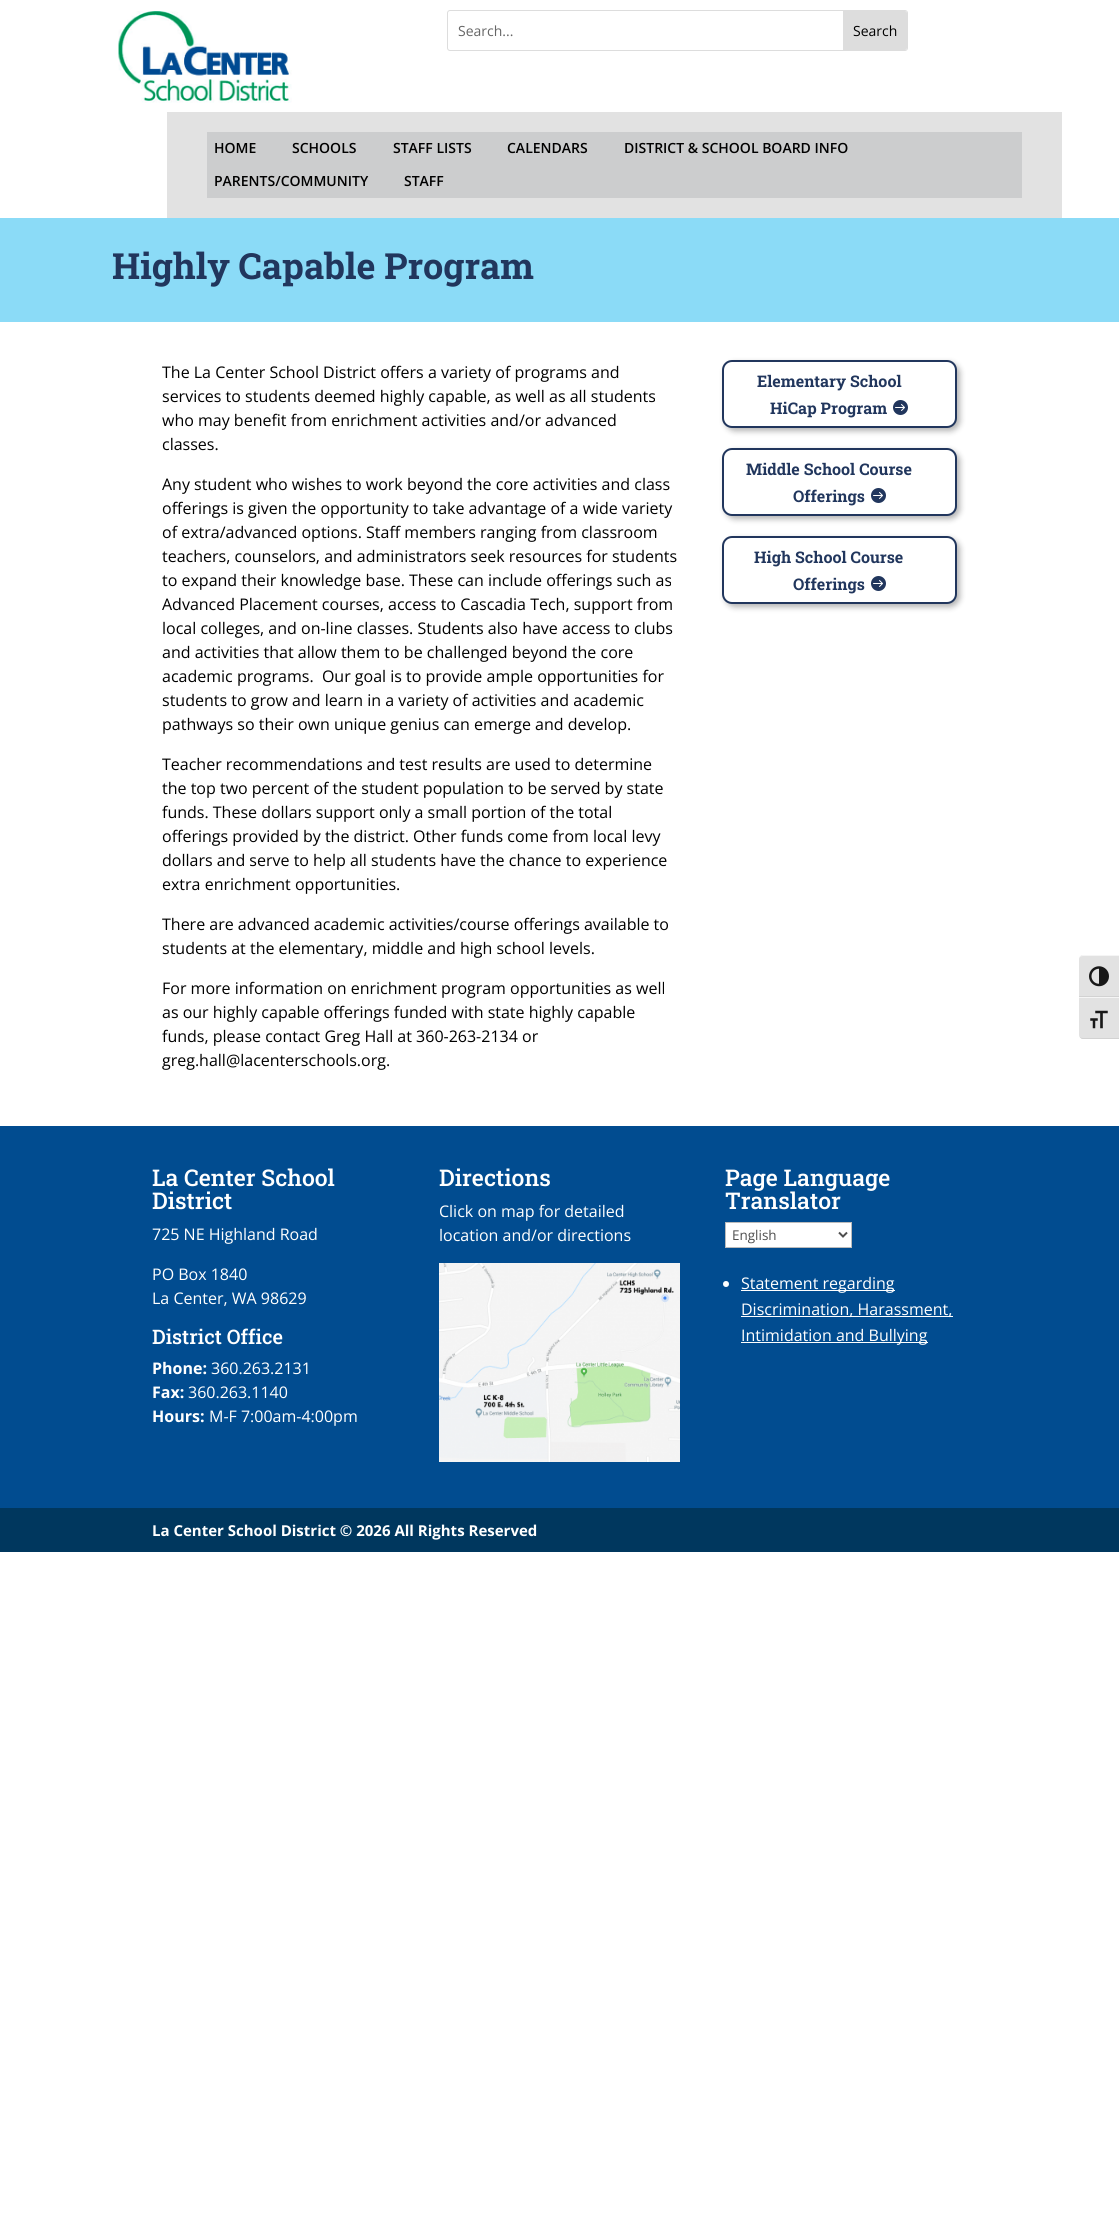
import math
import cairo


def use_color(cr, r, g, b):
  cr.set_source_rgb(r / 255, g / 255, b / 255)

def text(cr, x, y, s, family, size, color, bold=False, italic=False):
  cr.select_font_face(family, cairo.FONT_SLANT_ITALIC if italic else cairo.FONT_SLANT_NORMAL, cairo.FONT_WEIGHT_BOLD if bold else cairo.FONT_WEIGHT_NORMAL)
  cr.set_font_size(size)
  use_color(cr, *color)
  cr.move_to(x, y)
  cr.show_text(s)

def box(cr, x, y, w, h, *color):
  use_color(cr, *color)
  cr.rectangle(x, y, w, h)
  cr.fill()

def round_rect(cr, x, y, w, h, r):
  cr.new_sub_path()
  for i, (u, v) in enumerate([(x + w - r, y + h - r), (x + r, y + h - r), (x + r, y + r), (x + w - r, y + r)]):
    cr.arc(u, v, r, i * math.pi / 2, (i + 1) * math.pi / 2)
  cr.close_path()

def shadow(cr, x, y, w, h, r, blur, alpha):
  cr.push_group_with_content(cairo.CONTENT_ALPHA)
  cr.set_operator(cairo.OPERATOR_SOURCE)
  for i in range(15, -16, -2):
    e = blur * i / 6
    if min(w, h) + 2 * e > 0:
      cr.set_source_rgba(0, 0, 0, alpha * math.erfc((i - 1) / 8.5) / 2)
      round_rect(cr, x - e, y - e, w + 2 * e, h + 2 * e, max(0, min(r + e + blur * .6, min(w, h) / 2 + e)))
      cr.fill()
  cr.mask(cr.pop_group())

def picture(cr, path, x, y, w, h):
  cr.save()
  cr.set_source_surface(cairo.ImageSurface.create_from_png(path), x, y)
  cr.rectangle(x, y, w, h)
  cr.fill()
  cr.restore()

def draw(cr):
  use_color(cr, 255, 255, 255)
  cr.paint()
  picture(cr, "img_01.png", 118, 11, 174, 92)
  round_rect(cr, 447.5, 10.5, 460, 40, 2.5)
  use_color(cr, 221, 221, 221)
  cr.set_line_width(1)
  cr.stroke()
  cr.new_path()
  cr.move_to(843, 11)
  cr.line_to(905, 11)
  cr.curve_to(906, 11, 907, 12, 907, 13)
  cr.line_to(907, 48)
  cr.curve_to(907, 49, 906, 50, 905, 50)
  cr.line_to(843, 50)
  cr.close_path()
  cr.fill()
  box(cr, 167, 112, 895, 106, 226, 226, 226)
  box(cr, 207, 132, 815, 66, 204, 205, 206)
  box(cr, 0, 218, 1119, 104, 139, 219, 247)
  use_color(cr, 0, 0, 0)
  shadow(cr, 725, 363, 235, 68, 10, 3, 0.3)
  use_color(cr, 255, 255, 255)
  round_rect(cr, 723, 361, 233, 66, 9)
  cr.fill_preserve()
  use_color(cr, 33, 54, 93)
  cr.set_line_width(2)
  cr.stroke()
  picture(cr, "img_02.png", 893, 400, 15, 15)
  use_color(cr, 0, 0, 0)
  shadow(cr, 725, 451, 235, 68, 10, 3, 0.3)
  use_color(cr, 255, 255, 255)
  round_rect(cr, 723, 449, 233, 66, 9)
  cr.fill_preserve()
  use_color(cr, 33, 54, 93)
  cr.stroke()
  picture(cr, "img_02.png", 871, 488, 15, 15)
  use_color(cr, 0, 0, 0)
  shadow(cr, 725, 539, 235, 68, 10, 3, 0.3)
  use_color(cr, 255, 255, 255)
  round_rect(cr, 723, 537, 233, 66, 9)
  cr.fill_preserve()
  use_color(cr, 33, 54, 93)
  cr.stroke()
  picture(cr, "img_02.png", 871, 576, 15, 15)
  box(cr, 0, 1126, 1119, 382, 1, 76, 144)
  picture(cr, "img_03.png", 439, 1263, 241, 199)
  use_color(cr, 255, 255, 255)
  cr.rectangle(725.5, 1222.5, 126, 25)
  cr.fill_preserve()
  use_color(cr, 187, 187, 187)
  cr.set_line_width(1)
  cr.stroke()
  cr.new_path()
  cr.move_to(839, 1232.5)
  cr.line_to(843, 1236.5)
  cr.line_to(847, 1232.5)
  use_color(cr, 78, 78, 78)
  cr.set_line_width(2)
  cr.stroke()
  use_color(cr, 255, 255, 255)
  cr.arc(726, 1284, 3, 0, 2 * math.pi)
  cr.fill()
  box(cr, 741, 1290, 154, 1, 255, 255, 255)
  box(cr, 741, 1316, 212, 1, 255, 255, 255)
  box(cr, 741, 1342, 187, 1, 255, 255, 255)
  box(cr, 0, 1508, 1119, 44, 0, 55, 94)
  use_color(cr, 226, 226, 226)
  cr.new_path()
  cr.move_to(1083, 955)
  cr.line_to(1119, 955)
  cr.line_to(1119, 997)
  cr.line_to(1079, 997)
  cr.line_to(1079, 959)
  cr.curve_to(1079, 957, 1081, 955, 1083, 955)
  cr.close_path()
  cr.fill()
  use_color(cr, 245, 245, 245)
  cr.new_path()
  cr.move_to(1083, 956)
  cr.line_to(1119, 956)
  cr.line_to(1119, 955)
  cr.line_to(1083, 955)
  cr.curve_to(1081, 955, 1079, 957, 1079, 959)
  cr.curve_to(1079, 957, 1081, 956, 1083, 956)
  cr.close_path()
  cr.fill()
  box(cr, 1079, 996, 40, 1, 210, 210, 210)
  picture(cr, "img_04.png", 1089, 966, 20, 21)
  use_color(cr, 226, 226, 226)
  cr.new_path()
  cr.move_to(1079, 997)
  cr.line_to(1119, 997)
  cr.line_to(1119, 1039)
  cr.line_to(1083, 1039)
  cr.curve_to(1081, 1039, 1079, 1037, 1079, 1035)
  cr.close_path()
  cr.fill()
  box(cr, 1079, 997, 40, 1, 245, 245, 245)
  use_color(cr, 210, 210, 210)
  cr.new_path()
  cr.move_to(1119, 1039)
  cr.line_to(1119, 1038)
  cr.line_to(1083, 1038)
  cr.curve_to(1081, 1038, 1079, 1037, 1079, 1035)
  cr.curve_to(1079, 1037, 1081, 1039, 1083, 1039)
  cr.close_path()
  cr.fill()
  picture(cr, "img_05.png", 1090, 1010, 18, 19)
  text(cr, 458, 36, "Search...", "Open Sans", 14, (102, 102, 102))
  text(cr, 853, 36, "Search", "Open Sans", 14, (0, 0, 0))
  text(cr, 214, 153, "HOME", "Open Sans SemiBold", 14, (0, 0, 0))
  text(cr, 292, 153, "SCHOOLS", "Open Sans SemiBold", 14, (0, 0, 0))
  text(cr, 393, 153, "STAFF LISTS", "Open Sans SemiBold", 14, (0, 0, 0))
  text(cr, 507, 153, "CALENDARS", "Open Sans SemiBold", 14, (0, 0, 0))
  text(cr, 624, 153, "DISTRICT & SCHOOL BOARD INFO", "Open Sans SemiBold", 14, (0, 0, 0))
  text(cr, 214, 186, "PARENTS/COMMUNITY", "Open Sans SemiBold", 14, (0, 0, 0))
  text(cr, 404, 186, "STAFF", "Open Sans SemiBold", 14, (0, 0, 0))
  text(cr, 112, 279, "Highly Capable Program", "Roboto Slab", 36, (33, 54, 93), bold=True)
  text(cr, 162, 378, "The La Center School District offers a variety of programs and", "Open Sans", 16, (0, 0, 0))
  text(cr, 162, 402, "services to students deemed highly capable, as well as all students", "Open Sans", 16, (0, 0, 0))
  text(cr, 162, 426, "who may benefit from enrichment activities and/or advanced", "Open Sans", 16, (0, 0, 0))
  text(cr, 162, 450, "classes.", "Open Sans", 16, (0, 0, 0))
  text(cr, 162, 490, "Any student who wishes to work beyond the core activities and class", "Open Sans", 16, (0, 0, 0))
  text(cr, 162, 514, "offerings is given the opportunity to take advantage of a wide variety", "Open Sans", 16, (0, 0, 0))
  text(cr, 162, 538, "of extra/advanced options. Staff members ranging from classroom", "Open Sans", 16, (0, 0, 0))
  text(cr, 162, 562, "teachers, counselors, and administrators seek resources for students", "Open Sans", 16, (0, 0, 0))
  text(cr, 162, 586, "to expand their knowledge base. These can include offerings such as", "Open Sans", 16, (0, 0, 0))
  text(cr, 162, 610, "Advanced Placement courses, access to Cascadia Tech, support from", "Open Sans", 16, (0, 0, 0))
  text(cr, 162, 634, "local colleges, and on-line classes. Students also have access to clubs", "Open Sans", 16, (0, 0, 0))
  text(cr, 162, 658, "and activities that allow them to be challenged beyond the core", "Open Sans", 16, (0, 0, 0))
  text(cr, 162, 682, "academic programs.  Our goal is to provide ample opportunities for", "Open Sans", 16, (0, 0, 0))
  text(cr, 162, 706, "students to grow and learn in a variety of activities and academic", "Open Sans", 16, (0, 0, 0))
  text(cr, 162, 730, "pathways so their own unique genius can emerge and develop.", "Open Sans", 16, (0, 0, 0))
  text(cr, 162, 770, "Teacher recommendations and test results are used to determine", "Open Sans", 16, (0, 0, 0))
  text(cr, 162, 794, "the top two percent of the student population to be served by state", "Open Sans", 16, (0, 0, 0))
  text(cr, 162, 818, "funds. These dollars support only a small portion of the total", "Open Sans", 16, (0, 0, 0))
  text(cr, 162, 842, "offerings provided by the district. Other funds come from local levy", "Open Sans", 16, (0, 0, 0))
  text(cr, 162, 866, "dollars and serve to help all students have the chance to experience", "Open Sans", 16, (0, 0, 0))
  text(cr, 162, 890, "extra enrichment opportunities.", "Open Sans", 16, (0, 0, 0))
  text(cr, 162, 930, "There are advanced academic activities/course offerings available to", "Open Sans", 16, (0, 0, 0))
  text(cr, 162, 954, "students at the elementary, middle and high school levels.", "Open Sans", 16, (0, 0, 0))
  text(cr, 162, 994, "For more information on enrichment program opportunities as well", "Open Sans", 16, (0, 0, 0))
  text(cr, 162, 1018, "as our highly capable offerings funded with state highly capable", "Open Sans", 16, (0, 0, 0))
  text(cr, 162, 1042, "funds, please contact Greg Hall at 360-263-2134 or", "Open Sans", 16, (0, 0, 0))
  text(cr, 162, 1066, "greg.hall@lacenterschools.org.", "Open Sans", 16, (0, 0, 0))
  text(cr, 757, 387, "Elementary School", "Roboto Slab", 16, (33, 54, 93), bold=True)
  text(cr, 770, 414, "HiCap Program", "Roboto Slab", 16, (33, 54, 93), bold=True)
  text(cr, 746, 475, "Middle School Course", "Roboto Slab", 16, (33, 54, 93), bold=True)
  text(cr, 793, 502, "Offerings", "Roboto Slab", 16, (33, 54, 93), bold=True)
  text(cr, 754, 563, "High School Course", "Roboto Slab", 16, (33, 54, 93), bold=True)
  text(cr, 793, 590, "Offerings", "Roboto Slab", 16, (33, 54, 93), bold=True)
  text(cr, 152, 1186, "La Center School", "Roboto Slab Medium", 23, (255, 255, 255))
  text(cr, 152, 1209, "District", "Roboto Slab Medium", 23, (255, 255, 255))
  text(cr, 152, 1240, "725 NE Highland Road", "Open Sans", 16, (255, 255, 255))
  text(cr, 152, 1280, "PO Box 1840", "Open Sans", 16, (255, 255, 255))
  text(cr, 152, 1304, "La Center, WA 98629", "Open Sans", 16, (255, 255, 255))
  text(cr, 152, 1344, "District Office", "Roboto Slab Medium", 20, (255, 255, 255))
  text(cr, 152, 1374, "Phone:", "Open Sans", 16, (255, 255, 255), bold=True)
  text(cr, 211, 1374, "360.263.2131", "Open Sans", 16, (255, 255, 255))
  text(cr, 152, 1398, "Fax:", "Open Sans", 16, (255, 255, 255), bold=True)
  text(cr, 188, 1398, "360.263.1140", "Open Sans", 16, (255, 255, 255))
  text(cr, 152, 1422, "Hours:", "Open Sans", 16, (255, 255, 255), bold=True)
  text(cr, 209, 1422, "M-F 7:00am-4:00pm", "Open Sans", 16, (255, 255, 255))
  text(cr, 439, 1186, "Directions", "Roboto Slab Medium", 23, (255, 255, 255))
  text(cr, 439, 1217, "Click on map for detailed", "Open Sans", 16, (255, 255, 255))
  text(cr, 439, 1241, "location and/or directions", "Open Sans", 16, (255, 255, 255))
  text(cr, 725, 1186, "Page Language", "Roboto Slab Medium", 23, (255, 255, 255))
  text(cr, 725, 1209, "Translator", "Roboto Slab Medium", 23, (255, 255, 255))
  text(cr, 732, 1240, "English", "Open Sans", 13.5, (78, 78, 78))
  text(cr, 741, 1289, "Statement regarding", "Open Sans", 16, (255, 255, 255))
  text(cr, 741, 1315, "Discrimination, Harassment,", "Open Sans", 16, (255, 255, 255))
  text(cr, 741, 1341, "Intimidation and Bullying", "Open Sans", 16, (255, 255, 255))
  text(cr, 152, 1536, "La Center School District © 2026 All Rights Reserved", "Open Sans", 15, (255, 255, 255), bold=True)


surface = cairo.ImageSurface(cairo.FORMAT_RGB24, 1119, 2222)
cr = cairo.Context(surface)
options = cairo.FontOptions()
options.set_hint_metrics(cairo.HINT_METRICS_OFF)
options.set_hint_style(cairo.HINT_STYLE_NONE)
cr.set_font_options(options)
cr.set_miter_limit(4)
draw(cr)
surface.write_to_png("out.png")
